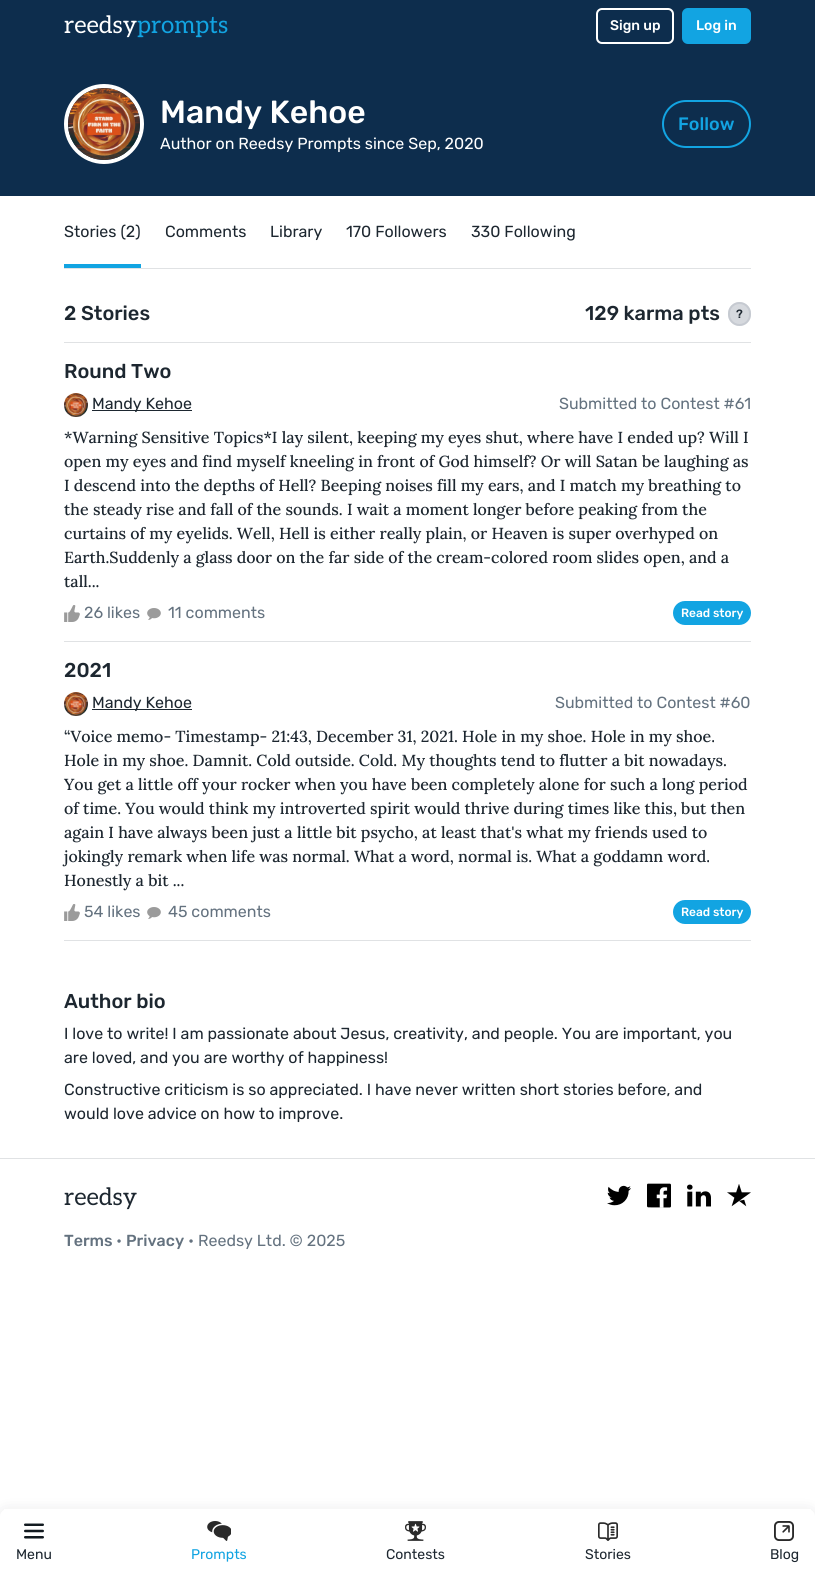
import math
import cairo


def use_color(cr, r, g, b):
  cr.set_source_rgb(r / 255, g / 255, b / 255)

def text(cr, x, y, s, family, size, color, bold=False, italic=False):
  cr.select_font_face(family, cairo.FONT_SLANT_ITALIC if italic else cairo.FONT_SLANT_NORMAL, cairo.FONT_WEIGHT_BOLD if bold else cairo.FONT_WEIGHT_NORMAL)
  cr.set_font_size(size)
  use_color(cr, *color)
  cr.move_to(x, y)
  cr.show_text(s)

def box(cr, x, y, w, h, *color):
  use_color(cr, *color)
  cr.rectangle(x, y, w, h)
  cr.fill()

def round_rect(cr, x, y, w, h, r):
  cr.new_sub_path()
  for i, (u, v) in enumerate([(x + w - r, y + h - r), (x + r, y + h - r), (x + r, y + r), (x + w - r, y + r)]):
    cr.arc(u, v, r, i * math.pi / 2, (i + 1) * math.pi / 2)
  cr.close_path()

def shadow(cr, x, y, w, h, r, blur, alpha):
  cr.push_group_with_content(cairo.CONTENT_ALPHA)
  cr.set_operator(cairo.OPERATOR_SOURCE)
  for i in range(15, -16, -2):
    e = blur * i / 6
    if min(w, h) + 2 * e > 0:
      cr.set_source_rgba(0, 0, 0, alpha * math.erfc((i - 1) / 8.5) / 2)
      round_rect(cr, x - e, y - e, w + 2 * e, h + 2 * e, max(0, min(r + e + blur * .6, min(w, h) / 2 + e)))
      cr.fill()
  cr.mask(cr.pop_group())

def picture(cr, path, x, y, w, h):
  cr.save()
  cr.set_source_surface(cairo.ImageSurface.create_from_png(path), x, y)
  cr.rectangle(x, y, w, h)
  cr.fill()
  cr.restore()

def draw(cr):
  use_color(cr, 255, 255, 255)
  cr.paint()
  box(cr, 0, 0, 815, 196, 13, 45, 77)
  round_rect(cr, 597, 9, 76, 34, 5)
  use_color(cr, 255, 255, 255)
  cr.stroke()
  use_color(cr, 18, 164, 226)
  round_rect(cr, 683, 9, 67, 34, 5)
  cr.fill_preserve()
  cr.stroke()
  cr.arc(104, 124, 38, 0, 2 * math.pi)
  use_color(cr, 255, 255, 255)
  cr.set_line_width(4)
  cr.stroke()
  picture(cr, "img_01.png", 68, 88, 72, 72)
  round_rect(cr, 663, 101, 87, 46, 23)
  use_color(cr, 18, 164, 226)
  cr.set_line_width(2)
  cr.stroke()
  cr.save()
  cr.set_fill_rule(cairo.FILL_RULE_EVEN_ODD)
  cr.new_path()
  cr.move_to(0, 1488)
  cr.line_to(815, 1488)
  cr.line_to(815, 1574)
  cr.line_to(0, 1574)
  cr.close_path()
  cr.move_to(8, 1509)
  cr.line_to(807, 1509)
  cr.curve_to(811.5, 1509, 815, 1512.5, 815, 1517)
  cr.line_to(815, 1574)
  cr.line_to(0, 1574)
  cr.line_to(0, 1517)
  cr.curve_to(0, 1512.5, 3.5, 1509, 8, 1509)
  cr.close_path()
  cr.clip()
  use_color(cr, 17, 17, 26)
  shadow(cr, 0, 1513, 815, 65, 8, 8, 0.15)
  cr.restore()
  box(cr, 4, 1509, 807, 1, 255, 255, 255)
  picture(cr, "img_02.png", 24, 1523, 20, 16)
  picture(cr, "img_03.png", 207, 1521, 24, 20)
  picture(cr, "img_04.png", 405, 1521, 21, 20)
  picture(cr, "img_05.png", 598, 1522, 20, 19)
  picture(cr, "img_06.png", 774, 1521, 20, 20)
  box(cr, 64, 268, 687, 1, 224, 226, 228)
  box(cr, 64, 264, 77, 4, 18, 164, 226)
  use_color(cr, 214, 217, 222)
  round_rect(cr, 728, 302, 23, 24, 11.5)
  cr.fill()
  round_rect(cr, 729, 303, 21, 22, 10.5)
  cr.set_source_rgba(0.733, 0.753, 0.784, 0.6)
  cr.stroke()
  box(cr, 64, 342, 687, 1, 224, 226, 228)
  picture(cr, "img_07.png", 64, 393, 24, 24)
  box(cr, 92, 410, 100, 1, 29, 39, 48)
  picture(cr, "img_08.png", 64, 605, 16, 17)
  picture(cr, "img_09.png", 147, 608, 14, 12)
  use_color(cr, 18, 164, 226)
  round_rect(cr, 674, 602, 76, 22, 11)
  cr.fill_preserve()
  cr.stroke()
  box(cr, 64, 641, 687, 1, 224, 226, 228)
  picture(cr, "img_07.png", 64, 692, 24, 24)
  box(cr, 92, 709, 100, 1, 29, 39, 48)
  picture(cr, "img_08.png", 64, 904, 16, 17)
  picture(cr, "img_09.png", 147, 907, 14, 12)
  use_color(cr, 18, 164, 226)
  round_rect(cr, 674, 901, 76, 22, 11)
  cr.fill_preserve()
  cr.stroke()
  box(cr, 64, 940, 687, 1, 224, 226, 228)
  box(cr, 0, 1158, 815, 1, 224, 226, 228)
  picture(cr, "img_10.png", 607, 1185, 24, 21)
  picture(cr, "img_11.png", 647, 1183, 24, 25)
  picture(cr, "img_12.png", 687, 1184, 24, 23)
  picture(cr, "img_13.png", 727, 1184, 24, 23)
  text(cr, 64, 33, "reedsy", "Aleo", 24, (255, 255, 255))
  text(cr, 137, 33, "prompts", "Aleo", 24, (18, 164, 226))
  text(cr, 610, 30, "Sign up", "Rubik Medium", 14, (255, 255, 255))
  text(cr, 696, 30, "Log in", "Rubik Medium", 14, (255, 255, 255))
  text(cr, 160, 123, "Mandy Kehoe", "Rubik Medium", 32, (255, 255, 255))
  text(cr, 160, 149, "Author on Reedsy Prompts since Sep, 2020", "Rubik", 16, (255, 255, 255))
  text(cr, 678, 130, "Follow", "Rubik Medium", 18, (18, 164, 226))
  text(cr, 16, 1559, "Menu", "Rubik", 14, (29, 39, 48))
  text(cr, 191, 1559, "Prompts", "Rubik", 14, (18, 164, 226))
  text(cr, 386, 1559, "Contests", "Rubik", 14, (29, 39, 48))
  text(cr, 585, 1559, "Stories", "Rubik", 14, (29, 39, 48))
  text(cr, 770, 1559, "Blog", "Rubik", 14, (29, 39, 48))
  text(cr, 64, 237, "Stories (2)", "Rubik", 16, (29, 39, 48))
  text(cr, 165, 237, "Comments", "Rubik", 16, (29, 39, 48))
  text(cr, 270, 237, "Library", "Rubik", 16, (29, 39, 48))
  text(cr, 346, 237, "170 Followers", "Rubik", 16, (29, 39, 48))
  text(cr, 471, 237, "330 Following", "Rubik", 16, (29, 39, 48))
  text(cr, 64, 320, "2 Stories", "Rubik Medium", 20, (29, 39, 48))
  text(cr, 585, 320, "129 karma pts", "Rubik Medium", 20, (29, 39, 48))
  text(cr, 736, 318, "?", "Rubik Medium", 12, (29, 39, 48))
  text(cr, 64, 378, "Round Two", "Rubik Medium", 20, (29, 39, 48))
  text(cr, 92, 409, "Mandy Kehoe", "Rubik", 16, (29, 39, 48))
  text(cr, 559, 409, "Submitted to Contest #61", "Rubik", 16, (100, 114, 127))
  text(cr, 64, 443, "*Warning Sensitive Topics*I lay silent, keeping my eyes shut, where have I ended up? Will I", "Lora Medium", 16, (29, 39, 48))
  text(cr, 64, 467, "open my eyes and find myself kneeling in front of God himself? Or will Satan be laughing as", "Lora Medium", 16, (29, 39, 48))
  text(cr, 64, 491, "I descend into the depths of Hell? Beeping noises fill my ears, and I match my breathing to", "Lora Medium", 16, (29, 39, 48))
  text(cr, 64, 515, "the steady rise and fall of the sounds. I wait a moment longer before peaking from the", "Lora Medium", 16, (29, 39, 48))
  text(cr, 64, 539, "curtains of my eyelids. Well, Hell is either really plain, or Heaven is super overhyped on", "Lora Medium", 16, (29, 39, 48))
  text(cr, 64, 563, "Earth.Suddenly a glass door on the far side of the cream-colored room slides open, and a", "Lora Medium", 16, (29, 39, 48))
  text(cr, 64, 587, "tall...", "Lora Medium", 16, (29, 39, 48))
  text(cr, 84, 618, "26 likes", "Rubik", 16, (100, 114, 127))
  text(cr, 168, 618, "11 comments", "Rubik", 16, (100, 114, 127))
  text(cr, 681, 617, "Read story", "Rubik Medium", 12, (255, 255, 255))
  text(cr, 64, 677, "2021", "Rubik Medium", 20, (29, 39, 48))
  text(cr, 92, 708, "Mandy Kehoe", "Rubik", 16, (29, 39, 48))
  text(cr, 555, 708, "Submitted to Contest #60", "Rubik", 16, (100, 114, 127))
  text(cr, 64, 742, "“Voice memo- Timestamp- 21:43, December 31, 2021. Hole in my shoe. Hole in my shoe.", "Lora Medium", 16, (29, 39, 48))
  text(cr, 64, 766, "Hole in my shoe. Damnit. Cold outside. Cold. My thoughts tend to flutter a bit nowadays.", "Lora Medium", 16, (29, 39, 48))
  text(cr, 64, 790, "You get a little off your rocker when you have been completely alone for such a long period", "Lora Medium", 16, (29, 39, 48))
  text(cr, 64, 814, "of time. You would think my introverted spirit would thrive during times like this, but then", "Lora Medium", 16, (29, 39, 48))
  text(cr, 64, 838, "again I have always been just a little bit psycho, at least that's what my friends used to", "Lora Medium", 16, (29, 39, 48))
  text(cr, 64, 862, "jokingly remark when life was normal. What a word, normal is. What a goddamn word.", "Lora Medium", 16, (29, 39, 48))
  text(cr, 64, 886, "Honestly a bit ...", "Lora Medium", 16, (29, 39, 48))
  text(cr, 84, 917, "54 likes", "Rubik", 16, (100, 114, 127))
  text(cr, 168, 917, "45 comments", "Rubik", 16, (100, 114, 127))
  text(cr, 681, 916, "Read story", "Rubik Medium", 12, (255, 255, 255))
  text(cr, 64, 1008, "Author bio", "Rubik Medium", 20, (29, 39, 48))
  text(cr, 64, 1039, "I love to write! I am passionate about Jesus, creativity, and people. You are important, you", "Rubik", 16, (29, 39, 48))
  text(cr, 64, 1063, "are loved, and you are worthy of happiness!", "Rubik", 16, (29, 39, 48))
  text(cr, 64, 1095, "Constructive criticism is so appreciated. I have never written short stories before, and", "Rubik", 16, (29, 39, 48))
  text(cr, 64, 1119, "would love advice on how to improve.", "Rubik", 16, (29, 39, 48))
  text(cr, 64, 1205, "reedsy", "Aleo", 24, (29, 39, 48))
  text(cr, 64, 1246, "Terms", "Rubik Medium", 16, (100, 114, 127))
  text(cr, 116, 1246, "•", "Rubik", 16, (100, 114, 127))
  text(cr, 126, 1246, "Privacy", "Rubik Medium", 16, (100, 114, 127))
  text(cr, 188, 1246, "• Reedsy Ltd. © 2025", "Rubik", 16, (100, 114, 127))


surface = cairo.ImageSurface(cairo.FORMAT_RGB24, 815, 1574)
cr = cairo.Context(surface)
options = cairo.FontOptions()
options.set_hint_metrics(cairo.HINT_METRICS_OFF)
options.set_hint_style(cairo.HINT_STYLE_NONE)
cr.set_font_options(options)
cr.set_miter_limit(4)
draw(cr)
surface.write_to_png("out.png")
